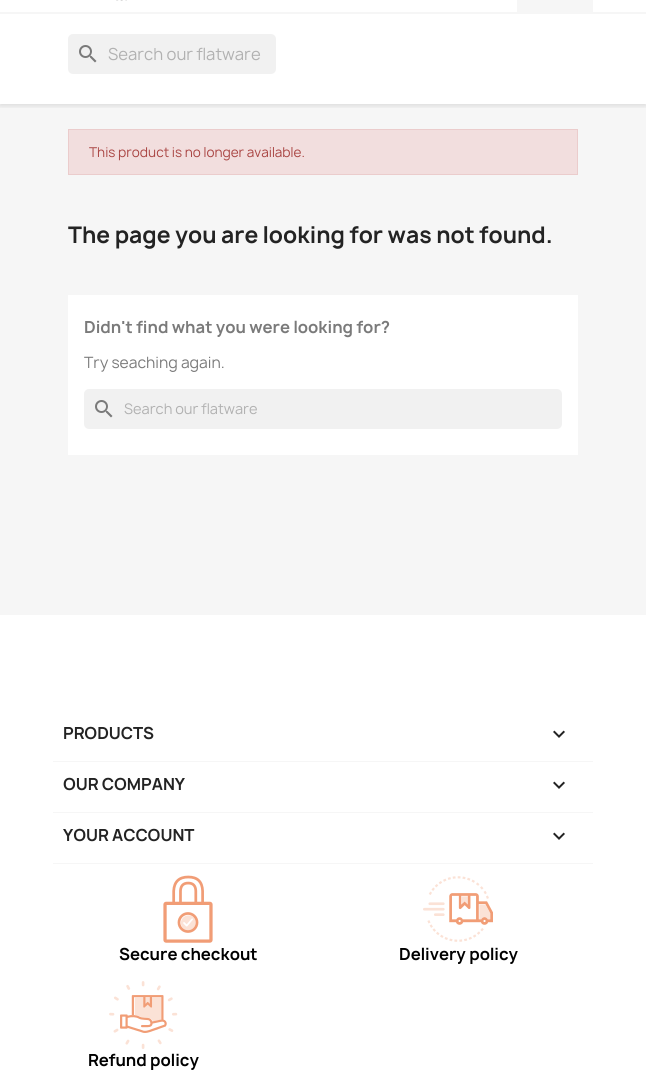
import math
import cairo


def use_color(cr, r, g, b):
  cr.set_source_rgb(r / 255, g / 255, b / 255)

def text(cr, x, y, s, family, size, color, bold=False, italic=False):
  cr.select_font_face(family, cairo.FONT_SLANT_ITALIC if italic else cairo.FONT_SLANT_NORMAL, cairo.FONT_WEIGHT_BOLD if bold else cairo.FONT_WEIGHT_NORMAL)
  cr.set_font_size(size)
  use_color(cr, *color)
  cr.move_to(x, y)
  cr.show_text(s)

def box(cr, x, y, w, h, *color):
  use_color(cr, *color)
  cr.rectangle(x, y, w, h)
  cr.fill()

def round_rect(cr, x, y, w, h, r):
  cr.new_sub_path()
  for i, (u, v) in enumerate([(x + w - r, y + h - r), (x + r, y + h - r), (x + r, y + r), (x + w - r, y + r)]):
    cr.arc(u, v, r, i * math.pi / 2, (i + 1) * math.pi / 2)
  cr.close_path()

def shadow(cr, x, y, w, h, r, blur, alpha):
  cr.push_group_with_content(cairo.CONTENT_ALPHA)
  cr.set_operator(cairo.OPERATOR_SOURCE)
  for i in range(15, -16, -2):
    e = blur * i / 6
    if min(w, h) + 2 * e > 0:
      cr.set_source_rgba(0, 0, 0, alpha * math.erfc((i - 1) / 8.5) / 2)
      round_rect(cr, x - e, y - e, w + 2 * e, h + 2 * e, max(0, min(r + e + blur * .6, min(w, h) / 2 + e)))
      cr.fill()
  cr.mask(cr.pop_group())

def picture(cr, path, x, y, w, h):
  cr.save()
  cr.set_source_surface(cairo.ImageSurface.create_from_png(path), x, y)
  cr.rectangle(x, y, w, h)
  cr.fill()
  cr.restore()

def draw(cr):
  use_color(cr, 255, 255, 255)
  cr.paint()
  box(cr, 0, 104, 646, 511, 246, 246, 246)
  cr.save()
  cr.rectangle(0, 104, 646, 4)
  cr.clip()
  use_color(cr, 0, 0, 0)
  shadow(cr, 0, -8, 646, 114, 0, 2.5, 0.11)
  cr.restore()
  box(cr, 0, 12, 646, 2, 246, 246, 246)
  picture(cr, "img_01.png", 116, 0, 11, 1)
  box(cr, 517, 0, 76, 12, 246, 246, 246)
  use_color(cr, 241, 241, 241)
  round_rect(cr, 68, 34, 208, 40, 5)
  cr.fill()
  picture(cr, "img_02.png", 79, 45, 18, 18)
  use_color(cr, 242, 222, 222)
  cr.rectangle(68.5, 129.5, 509, 45)
  cr.fill_preserve()
  use_color(cr, 235, 204, 204)
  cr.set_line_width(1)
  cr.stroke()
  box(cr, 68, 295, 510, 160, 255, 255, 255)
  use_color(cr, 241, 241, 241)
  round_rect(cr, 84, 389, 478, 40, 5)
  cr.fill()
  picture(cr, "img_02.png", 95, 400, 18, 18)
  box(cr, 53, 761, 540, 1, 246, 246, 246)
  picture(cr, "img_03.png", 553, 730, 12, 8)
  box(cr, 53, 812, 540, 1, 246, 246, 246)
  picture(cr, "img_03.png", 553, 781, 12, 8)
  box(cr, 53, 863, 540, 1, 246, 246, 246)
  picture(cr, "img_03.png", 553, 832, 12, 8)
  picture(cr, "img_04.png", 163, 875, 50, 68)
  picture(cr, "img_05.png", 423, 876, 70, 66)
  picture(cr, "img_06.png", 109, 981, 69, 68)
  text(cr, 108, 60, "Search our flatware", "Manrope", 16, (177, 177, 177))
  text(cr, 89, 157, "This product is no longer available.", "Manrope", 13, (169, 68, 66))
  text(cr, 68, 243, "The page you are looking for was not found.", "Manrope", 22, (35, 35, 35), bold=True)
  text(cr, 84, 333, "Didn't find what you were looking for?", "Manrope", 16, (122, 122, 122), bold=True)
  text(cr, 84, 368, "Try seaching again.", "Manrope", 15, (122, 122, 122))
  text(cr, 124, 414, "Search our flatware", "Manrope", 14, (177, 177, 177))
  text(cr, 63, 739, "PRODUCTS", "Manrope", 16, (35, 35, 35), bold=True)
  text(cr, 63, 790, "OUR COMPANY", "Manrope", 16, (35, 35, 35), bold=True)
  text(cr, 63, 841, "YOUR ACCOUNT", "Manrope", 16, (35, 35, 35), bold=True)
  text(cr, 119, 960, "Secure checkout", "Manrope", 16, (0, 0, 0), bold=True)
  text(cr, 399, 960, "Delivery policy", "Manrope", 16, (0, 0, 0), bold=True)
  text(cr, 88, 1066, "Refund policy", "Manrope", 16, (0, 0, 0), bold=True)


surface = cairo.ImageSurface(cairo.FORMAT_RGB24, 646, 1077)
cr = cairo.Context(surface)
options = cairo.FontOptions()
options.set_hint_metrics(cairo.HINT_METRICS_OFF)
options.set_hint_style(cairo.HINT_STYLE_NONE)
cr.set_font_options(options)
cr.set_miter_limit(4)
draw(cr)
surface.write_to_png("out.png")
